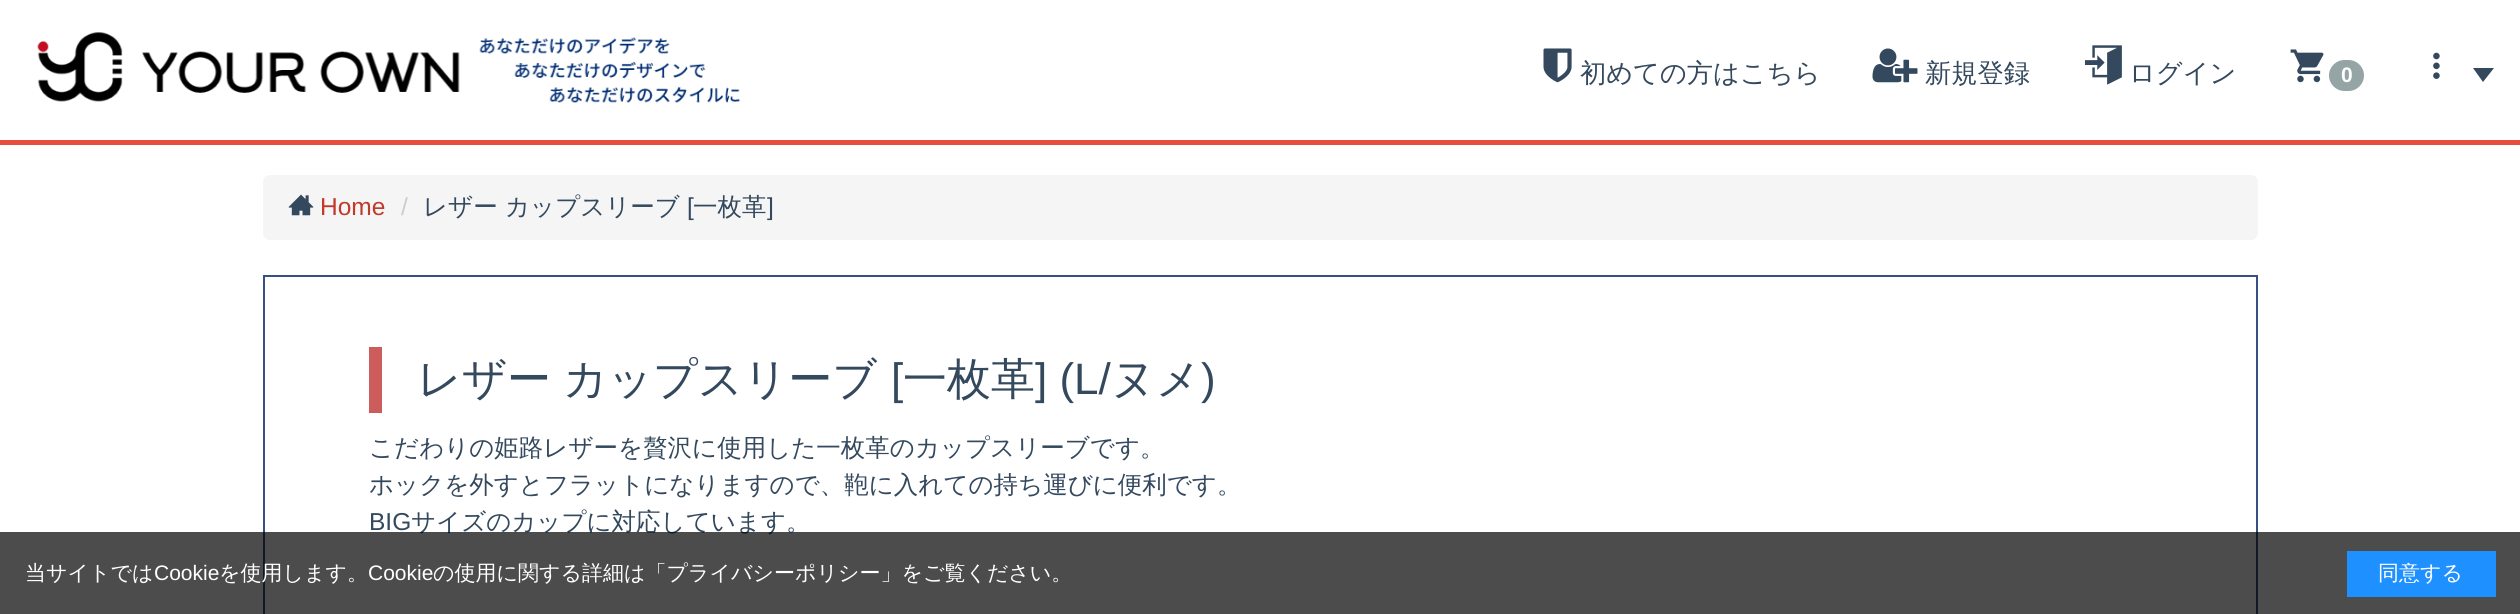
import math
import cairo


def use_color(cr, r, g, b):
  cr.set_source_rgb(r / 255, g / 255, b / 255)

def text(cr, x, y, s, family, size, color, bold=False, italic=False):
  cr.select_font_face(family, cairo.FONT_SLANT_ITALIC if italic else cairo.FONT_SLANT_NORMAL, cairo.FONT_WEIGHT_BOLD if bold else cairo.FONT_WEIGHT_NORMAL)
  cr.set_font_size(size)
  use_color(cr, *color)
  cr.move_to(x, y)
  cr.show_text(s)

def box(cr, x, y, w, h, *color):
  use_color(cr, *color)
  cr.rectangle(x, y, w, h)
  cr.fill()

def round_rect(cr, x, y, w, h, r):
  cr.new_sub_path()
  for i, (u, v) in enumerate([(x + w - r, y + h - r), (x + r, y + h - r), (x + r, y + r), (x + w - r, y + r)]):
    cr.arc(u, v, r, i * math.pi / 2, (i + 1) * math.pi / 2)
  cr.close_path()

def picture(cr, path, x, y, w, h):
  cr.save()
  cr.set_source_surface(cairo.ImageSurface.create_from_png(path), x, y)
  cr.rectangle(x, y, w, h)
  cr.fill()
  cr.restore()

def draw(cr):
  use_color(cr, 255, 255, 255)
  cr.paint()
  box(cr, 0, 140, 2520, 5, 231, 76, 60)
  picture(cr, "img_01.png", 37, 32, 703, 71)
  picture(cr, "img_02.png", 1543, 48, 29, 35)
  picture(cr, "img_03.png", 1872, 48, 46, 35)
  picture(cr, "img_04.png", 2084, 45, 38, 40)
  picture(cr, "img_05.png", 2290, 49, 34, 34)
  use_color(cr, 149, 165, 166)
  round_rect(cr, 2329, 60, 35, 31, 15.5)
  cr.fill()
  picture(cr, "img_06.png", 2433, 52, 7, 27)
  use_color(cr, 52, 73, 94)
  cr.new_path()
  cr.move_to(2473, 68)
  cr.line_to(2494, 68)
  cr.line_to(2483, 82)
  cr.close_path()
  cr.fill()
  use_color(cr, 245, 245, 245)
  round_rect(cr, 263, 175, 1995, 65, 7)
  cr.fill()
  picture(cr, "img_07.png", 288, 194, 26, 22)
  cr.rectangle(264, 276, 1993, 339)
  use_color(cr, 54, 80, 133)
  cr.stroke()
  box(cr, 369, 347, 13, 66, 205, 92, 92)
  text(cr, 1580, 82, "初めての方はこちら", "WenQuanYi Zen Hei Medium", 26.25, (52, 73, 94))
  text(cr, 1925, 82, "新規登録", "WenQuanYi Zen Hei Medium", 26.25, (52, 73, 94))
  text(cr, 2129, 82, "ログイン", "WenQuanYi Zen Hei Medium", 26.25, (52, 73, 94))
  text(cr, 2341, 82, "0", "Liberation Sans", 21, (255, 255, 255), bold=True)
  text(cr, 320, 215, "Home", "Liberation Sans", 24.5, (192, 57, 43))
  text(cr, 401, 215, "/", "Liberation Sans", 24.5, (204, 204, 204))
  text(cr, 423, 215, "レザー カップスリーブ", "WenQuanYi Zen Hei Medium", 24.5, (52, 73, 94))
  text(cr, 687, 215, "[", "Liberation Sans", 24.5, (52, 73, 94))
  text(cr, 693, 215, "一枚革", "WenQuanYi Zen Hei Medium", 24.5, (52, 73, 94))
  text(cr, 767, 215, "]", "Liberation Sans", 24.5, (52, 73, 94))
  text(cr, 417, 394, "レザー", "WenQuanYi Zen Hei Medium", 44, (52, 73, 94))
  text(cr, 563, 394, "カップスリーブ", "WenQuanYi Zen Hei Medium", 44, (52, 73, 94))
  text(cr, 891, 394, "[", "Liberation Sans", 44, (52, 73, 94))
  text(cr, 903, 394, "一枚革", "WenQuanYi Zen Hei Medium", 44, (52, 73, 94))
  text(cr, 1035, 394, "] (L/", "Liberation Sans", 44, (52, 73, 94))
  text(cr, 1111, 394, "ヌメ", "WenQuanYi Zen Hei Medium", 44, (52, 73, 94))
  text(cr, 1201, 394, ")", "Liberation Sans", 44, (52, 73, 94))
  text(cr, 369, 456, "こだわりの姫路レザーを贅沢に使用した一枚革のカップスリーブです。", "WenQuanYi Zen Hei Medium", 24.5, (52, 73, 94))
  text(cr, 369, 493, "ホックを外すとフラットになりますので、鞄に入れての持ち運びに便利です。", "WenQuanYi Zen Hei Medium", 24.5, (52, 73, 94))
  text(cr, 369, 530, "BIG", "Liberation Sans", 24.5, (52, 73, 94))
  text(cr, 411, 530, "サイズのカップに対応しています。", "WenQuanYi Zen Hei Medium", 24.5, (52, 73, 94))
  cr.set_source_rgba(0, 0, 0, 0.7)
  cr.rectangle(0, 532, 2520, 82)
  cr.fill()
  text(cr, 25, 580, "当サイトでは", "WenQuanYi Zen Hei Medium", 21, (255, 255, 255))
  text(cr, 154, 580, "Cookie", "Liberation Sans", 21, (255, 255, 255))
  text(cr, 219, 580, "を使用します。", "WenQuanYi Zen Hei Medium", 21, (255, 255, 255))
  text(cr, 368, 580, "Cookie", "Liberation Sans", 21, (255, 255, 255))
  text(cr, 433, 580, "の使用に関する詳細は「プライバシーポリシー」をご覧ください。", "WenQuanYi Zen Hei Medium", 21, (255, 255, 255))
  box(cr, 2347, 551, 149, 46, 30, 144, 255)
  text(cr, 2378, 580, "同意する", "WenQuanYi Zen Hei Medium", 21, (255, 255, 255))


surface = cairo.ImageSurface(cairo.FORMAT_RGB24, 2520, 614)
cr = cairo.Context(surface)
options = cairo.FontOptions()
options.set_hint_metrics(cairo.HINT_METRICS_OFF)
options.set_hint_style(cairo.HINT_STYLE_NONE)
cr.set_font_options(options)
cr.set_miter_limit(4)
draw(cr)
surface.write_to_png("out.png")
